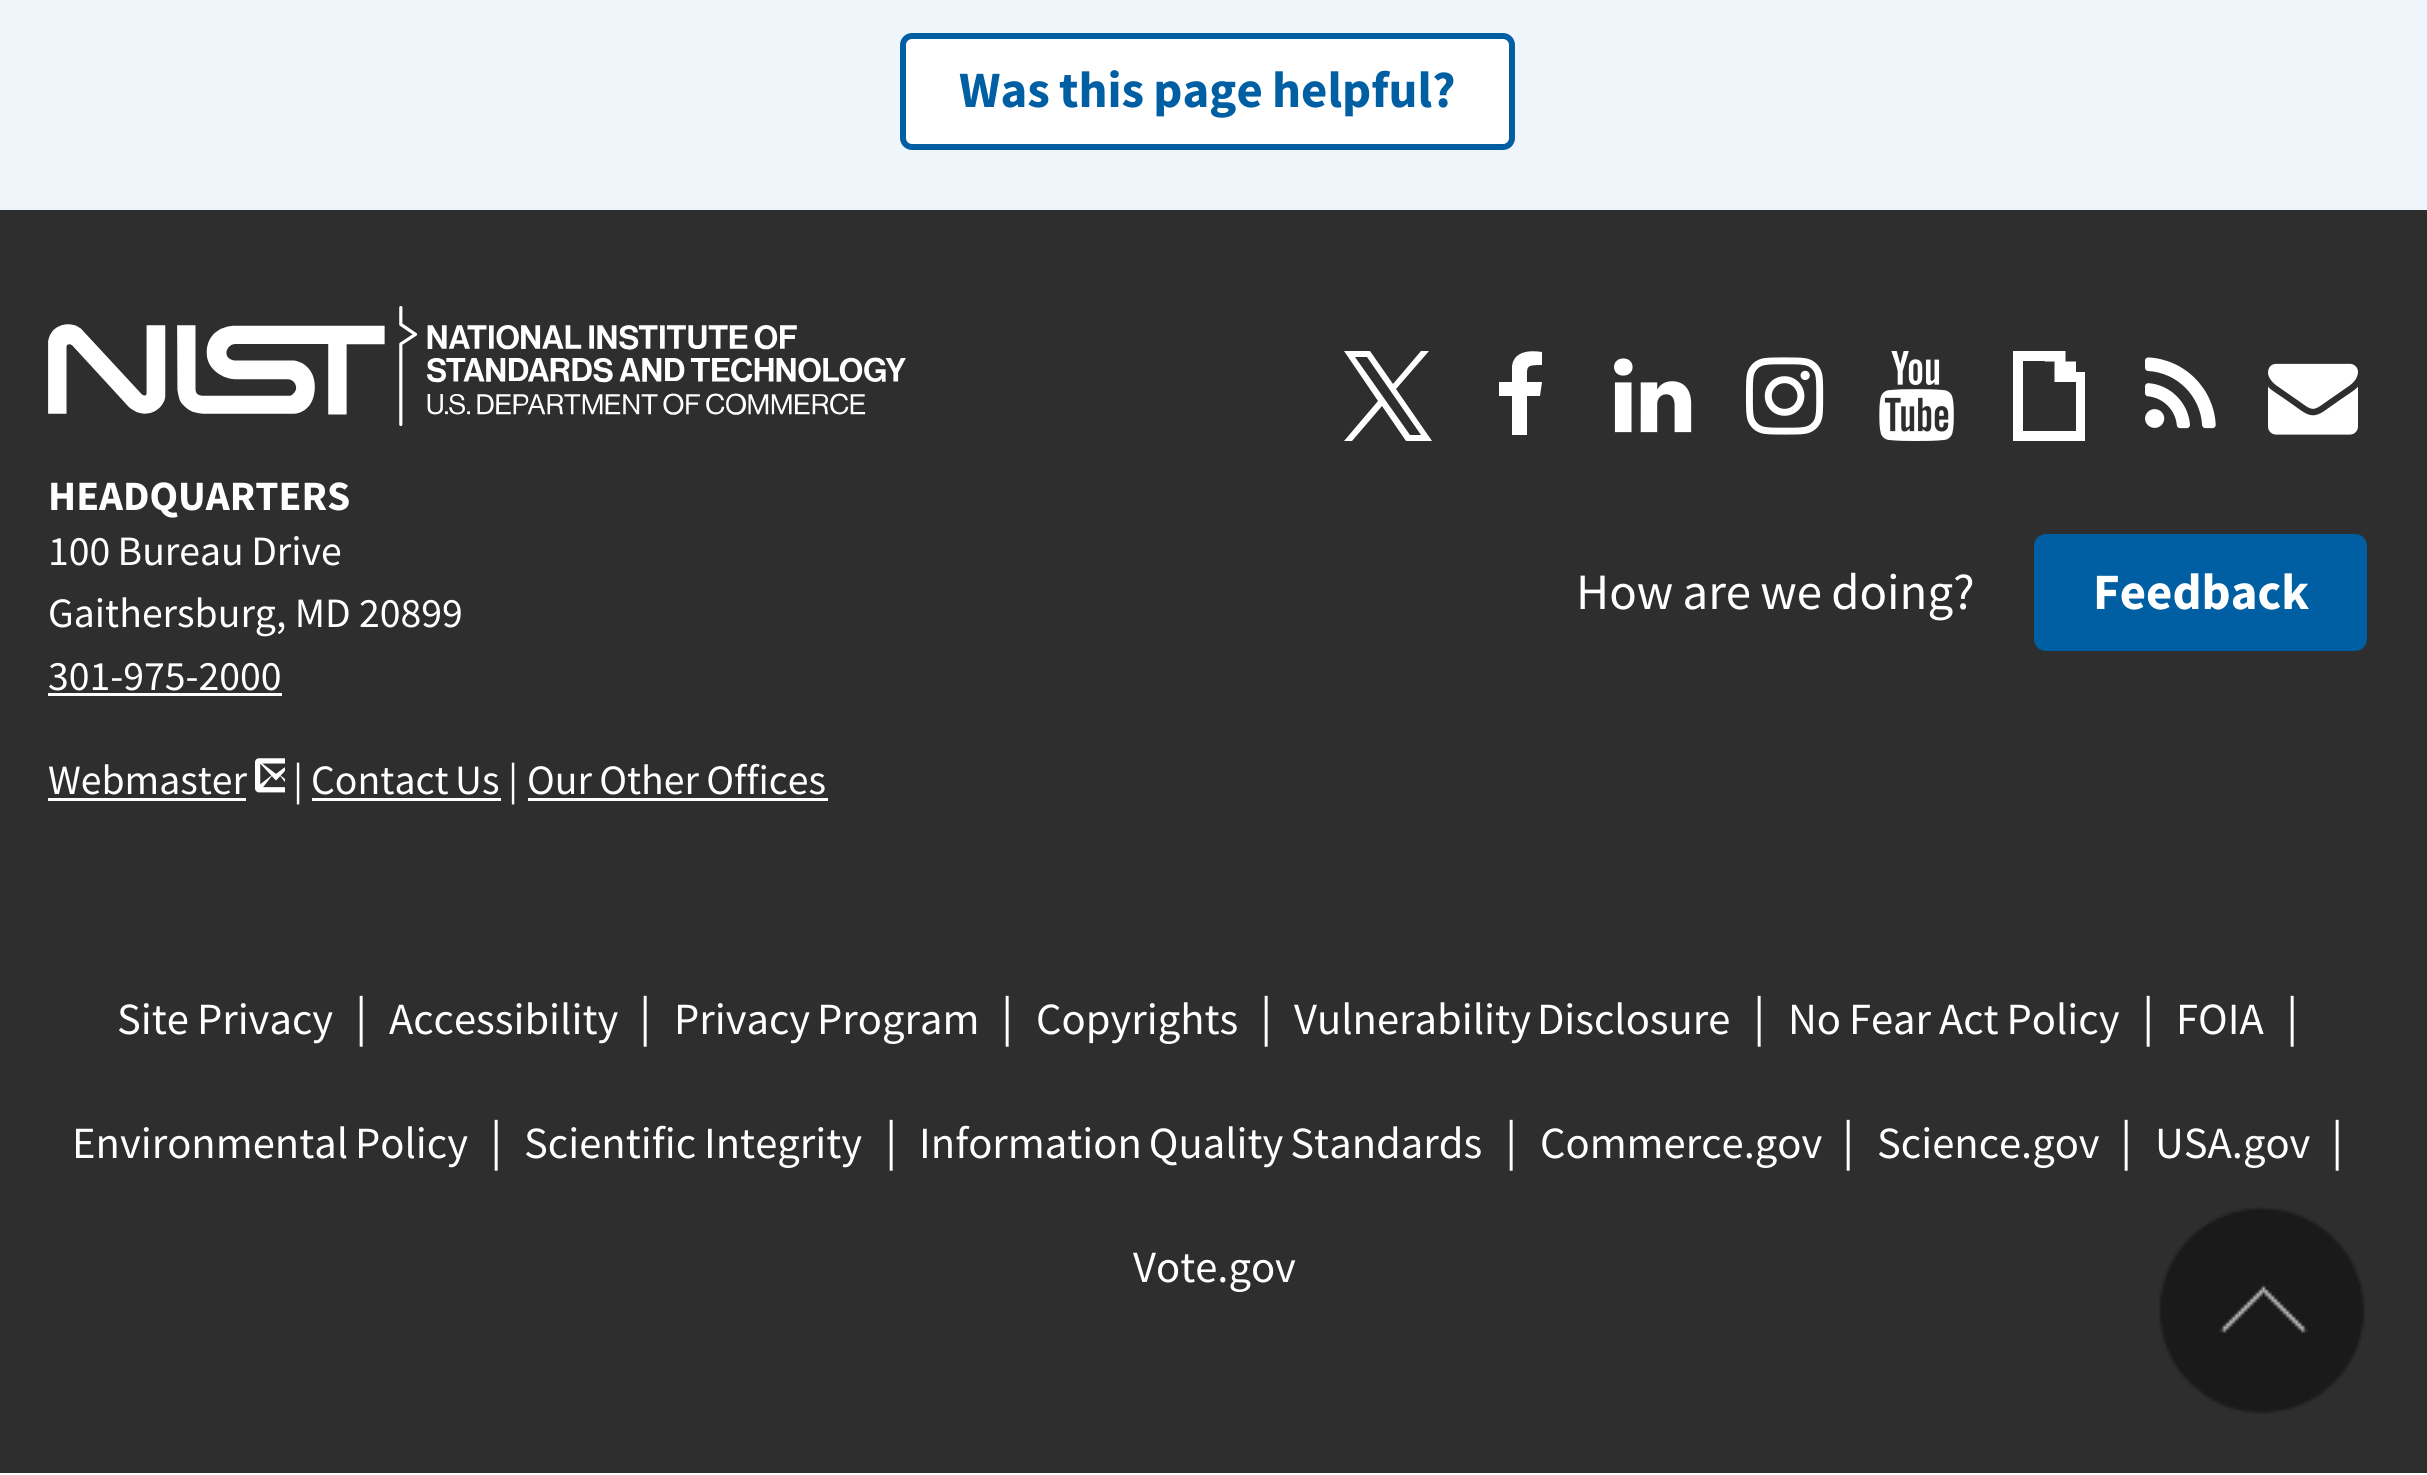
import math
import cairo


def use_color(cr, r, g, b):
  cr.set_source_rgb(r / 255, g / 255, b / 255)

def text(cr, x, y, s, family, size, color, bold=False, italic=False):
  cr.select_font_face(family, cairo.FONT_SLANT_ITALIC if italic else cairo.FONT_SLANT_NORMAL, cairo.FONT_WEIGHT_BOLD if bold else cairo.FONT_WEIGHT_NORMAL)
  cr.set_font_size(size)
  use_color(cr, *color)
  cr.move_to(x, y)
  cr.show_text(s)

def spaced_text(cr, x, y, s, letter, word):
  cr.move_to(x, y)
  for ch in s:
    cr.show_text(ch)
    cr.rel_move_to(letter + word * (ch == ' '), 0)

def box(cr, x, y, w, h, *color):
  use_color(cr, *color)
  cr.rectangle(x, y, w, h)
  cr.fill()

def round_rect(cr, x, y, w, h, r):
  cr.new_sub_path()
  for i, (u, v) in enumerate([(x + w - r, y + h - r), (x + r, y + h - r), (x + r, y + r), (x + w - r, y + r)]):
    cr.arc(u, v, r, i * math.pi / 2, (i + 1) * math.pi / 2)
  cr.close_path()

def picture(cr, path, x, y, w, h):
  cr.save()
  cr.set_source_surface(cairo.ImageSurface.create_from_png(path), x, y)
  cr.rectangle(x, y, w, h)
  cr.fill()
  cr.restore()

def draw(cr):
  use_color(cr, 255, 255, 255)
  cr.paint()
  box(cr, 0, 0, 2427, 210, 239, 246, 251)
  use_color(cr, 255, 255, 255)
  round_rect(cr, 903, 36, 609, 111, 9)
  cr.fill_preserve()
  use_color(cr, 0, 94, 162)
  cr.set_line_width(6)
  cr.stroke()
  box(cr, 0, 210, 2427, 1263, 46, 46, 46)
  picture(cr, "img_01.png", 48, 306, 858, 120)
  box(cr, 48, 693, 234, 3, 255, 255, 255)
  box(cr, 48, 798, 198, 3, 255, 255, 255)
  picture(cr, "img_02.png", 255, 758, 30, 35)
  box(cr, 312, 798, 189, 3, 255, 255, 255)
  box(cr, 528, 798, 300, 3, 255, 255, 255)
  cr.new_path()
  cr.move_to(1396, 389)
  cr.line_to(1429, 351)
  cr.line_to(1421, 351)
  cr.line_to(1393, 384)
  cr.line_to(1370, 351)
  cr.line_to(1344, 351)
  cr.line_to(1378, 401)
  cr.line_to(1344, 441)
  cr.line_to(1352, 441)
  cr.line_to(1382, 406)
  cr.line_to(1406, 441)
  cr.line_to(1432, 441)
  cr.close_path()
  cr.move_to(1386, 401)
  cr.line_to(1355, 357)
  cr.line_to(1367, 357)
  cr.line_to(1421, 435)
  cr.line_to(1410, 435)
  cr.close_path()
  cr.fill()
  cr.new_path()
  cr.move_to(1542, 352)
  cr.line_to(1542, 365)
  cr.curve_to(1525, 365, 1527, 366, 1527, 382)
  cr.line_to(1542, 382)
  cr.line_to(1540, 396)
  cr.line_to(1527, 396)
  cr.line_to(1527, 435)
  cr.line_to(1512, 435)
  cr.line_to(1512, 396)
  cr.line_to(1499, 396)
  cr.line_to(1499, 382)
  cr.line_to(1512, 382)
  cr.line_to(1512, 366)
  cr.curve_to(1514, 351, 1530, 350, 1542, 352)
  cr.close_path()
  cr.fill()
  picture(cr, "img_03.png", 1614, 358, 78, 75)
  picture(cr, "img_04.png", 1746, 357, 78, 78)
  picture(cr, "img_05.png", 1879, 351, 75, 90)
  box(cr, 2013, 361, 10, 70, 255, 255, 255)
  box(cr, 2076, 382, 9, 49, 255, 255, 255)
  box(cr, 2013, 431, 72, 10, 255, 255, 255)
  box(cr, 2013, 351, 42, 10, 255, 255, 255)
  cr.save()
  cr.rectangle(2013, 351, 72, 90)
  cr.clip()
  cr.new_path()
  cr.move_to(2076, 372)
  cr.line_to(2076, 361.5)
  cr.line_to(2065.5, 361.5)
  cr.line_to(2065.5, 351)
  cr.line_to(2054.5, 351)
  cr.line_to(2054.5, 382)
  cr.line_to(2086, 382)
  cr.line_to(2086, 372)
  cr.fill()
  cr.restore()
  cr.set_fill_rule(cairo.FILL_RULE_EVEN_ODD)
  cr.new_path()
  cr.move_to(2054.5, 351)
  cr.line_to(2054.5, 361.5)
  cr.line_to(2044.5, 361.5)
  cr.fill()
  picture(cr, "img_06.png", 2145, 357, 71, 72)
  picture(cr, "img_07.png", 2268, 363, 90, 72)
  use_color(cr, 0, 94, 162)
  round_rect(cr, 2034, 534, 333, 117, 12)
  cr.fill()
  picture(cr, "img_08.png", 2159, 1206, 206, 208)
  cr.select_font_face("Source Sans Pro", cairo.FONT_SLANT_NORMAL, cairo.FONT_WEIGHT_BOLD)
  cr.set_font_size(50.9)
  spaced_text(cr, 959, 107, "Was this page helpful?", 0, -1)
  text(cr, 48, 510, "HEADQUARTERS", "Source Sans Pro", 41.75, (255, 255, 255), bold=True)
  cr.select_font_face("Source Sans Pro")
  spaced_text(cr, 48, 565, "100 Bureau Drive", 0, -1)
  text(cr, 48, 627, "Gaithersburg, MD 20899", "Source Sans Pro", 41.75, (255, 255, 255))
  text(cr, 48, 690, "301-975-2000", "Source Sans Pro", 41.75, (255, 255, 255))
  text(cr, 48, 794, "Webmaster", "Source Sans Pro", 41.75, (255, 255, 255))
  text(cr, 293, 794, "|", "Source Sans Pro", 41.75, (255, 255, 255))
  spaced_text(cr, 311, 794, "Contact Us", 0, -2)
  text(cr, 508, 794, "|", "Source Sans Pro", 41.75, (255, 255, 255))
  spaced_text(cr, 527, 794, "Our Other Offices", 0, -1)
  cr.set_font_size(50.9)
  spaced_text(cr, 1576, 609, "How are we doing?", 0, -1)
  text(cr, 2093, 609, "Feedback", "Source Sans Pro", 50.9, (255, 255, 255), bold=True)
  cr.select_font_face("Source Sans Pro")
  cr.set_font_size(44.6)
  spaced_text(cr, 117, 1034, "Site Privacy", 0, -1)
  text(cr, 355, 1034, "|", "Source Sans Pro", 50.9, (255, 255, 255))
  text(cr, 389, 1034, "Accessibility", "Source Sans Pro", 44.6, (255, 255, 255))
  text(cr, 639, 1034, "|", "Source Sans Pro", 50.9, (255, 255, 255))
  cr.set_font_size(44.6)
  spaced_text(cr, 674, 1034, "Privacy Program", 0, -2)
  text(cr, 1001, 1034, "|", "Source Sans Pro", 50.9, (255, 255, 255))
  text(cr, 1036, 1034, "Copyrights", "Source Sans Pro", 44.6, (255, 255, 255))
  text(cr, 1260, 1034, "|", "Source Sans Pro", 50.9, (255, 255, 255))
  cr.set_font_size(44.6)
  spaced_text(cr, 1294, 1034, "Vulnerability Disclosure", 0, -3)
  text(cr, 1753, 1034, "|", "Source Sans Pro", 50.9, (255, 255, 255))
  cr.set_font_size(44.6)
  spaced_text(cr, 1788, 1034, "No Fear Act Policy", 0, -1)
  text(cr, 2142, 1034, "|", "Source Sans Pro", 50.9, (255, 255, 255))
  text(cr, 2176, 1034, "FOIA", "Source Sans Pro", 44.6, (255, 255, 255))
  text(cr, 2286, 1034, "|", "Source Sans Pro", 50.9, (255, 255, 255))
  cr.set_font_size(44.6)
  spaced_text(cr, 72, 1158, "Environmental Policy", 0, -2)
  text(cr, 490, 1158, "|", "Source Sans Pro", 50.9, (255, 255, 255))
  cr.set_font_size(44.6)
  spaced_text(cr, 524, 1158, "Scientific Integrity", 0, -1)
  text(cr, 885, 1158, "|", "Source Sans Pro", 50.9, (255, 255, 255))
  cr.set_font_size(44.6)
  spaced_text(cr, 919, 1158, "Information Quality Standards", 0, -2)
  text(cr, 1505, 1158, "|", "Source Sans Pro", 50.9, (255, 255, 255))
  text(cr, 1540, 1158, "Commerce.gov", "Source Sans Pro", 44.6, (255, 255, 255))
  text(cr, 1842, 1158, "|", "Source Sans Pro", 50.9, (255, 255, 255))
  text(cr, 1877, 1158, "Science.gov", "Source Sans Pro", 44.6, (255, 255, 255))
  text(cr, 2120, 1158, "|", "Source Sans Pro", 50.9, (255, 255, 255))
  text(cr, 2155, 1158, "USA.gov", "Source Sans Pro", 44.6, (255, 255, 255))
  text(cr, 2331, 1158, "|", "Source Sans Pro", 50.9, (255, 255, 255))
  text(cr, 1133, 1282, "Vote.gov", "Source Sans Pro", 44.6, (255, 255, 255))


surface = cairo.ImageSurface(cairo.FORMAT_RGB24, 2427, 1475)
cr = cairo.Context(surface)
options = cairo.FontOptions()
options.set_hint_metrics(cairo.HINT_METRICS_OFF)
options.set_hint_style(cairo.HINT_STYLE_NONE)
cr.set_font_options(options)
cr.set_miter_limit(4)
draw(cr)
surface.write_to_png("out.png")
